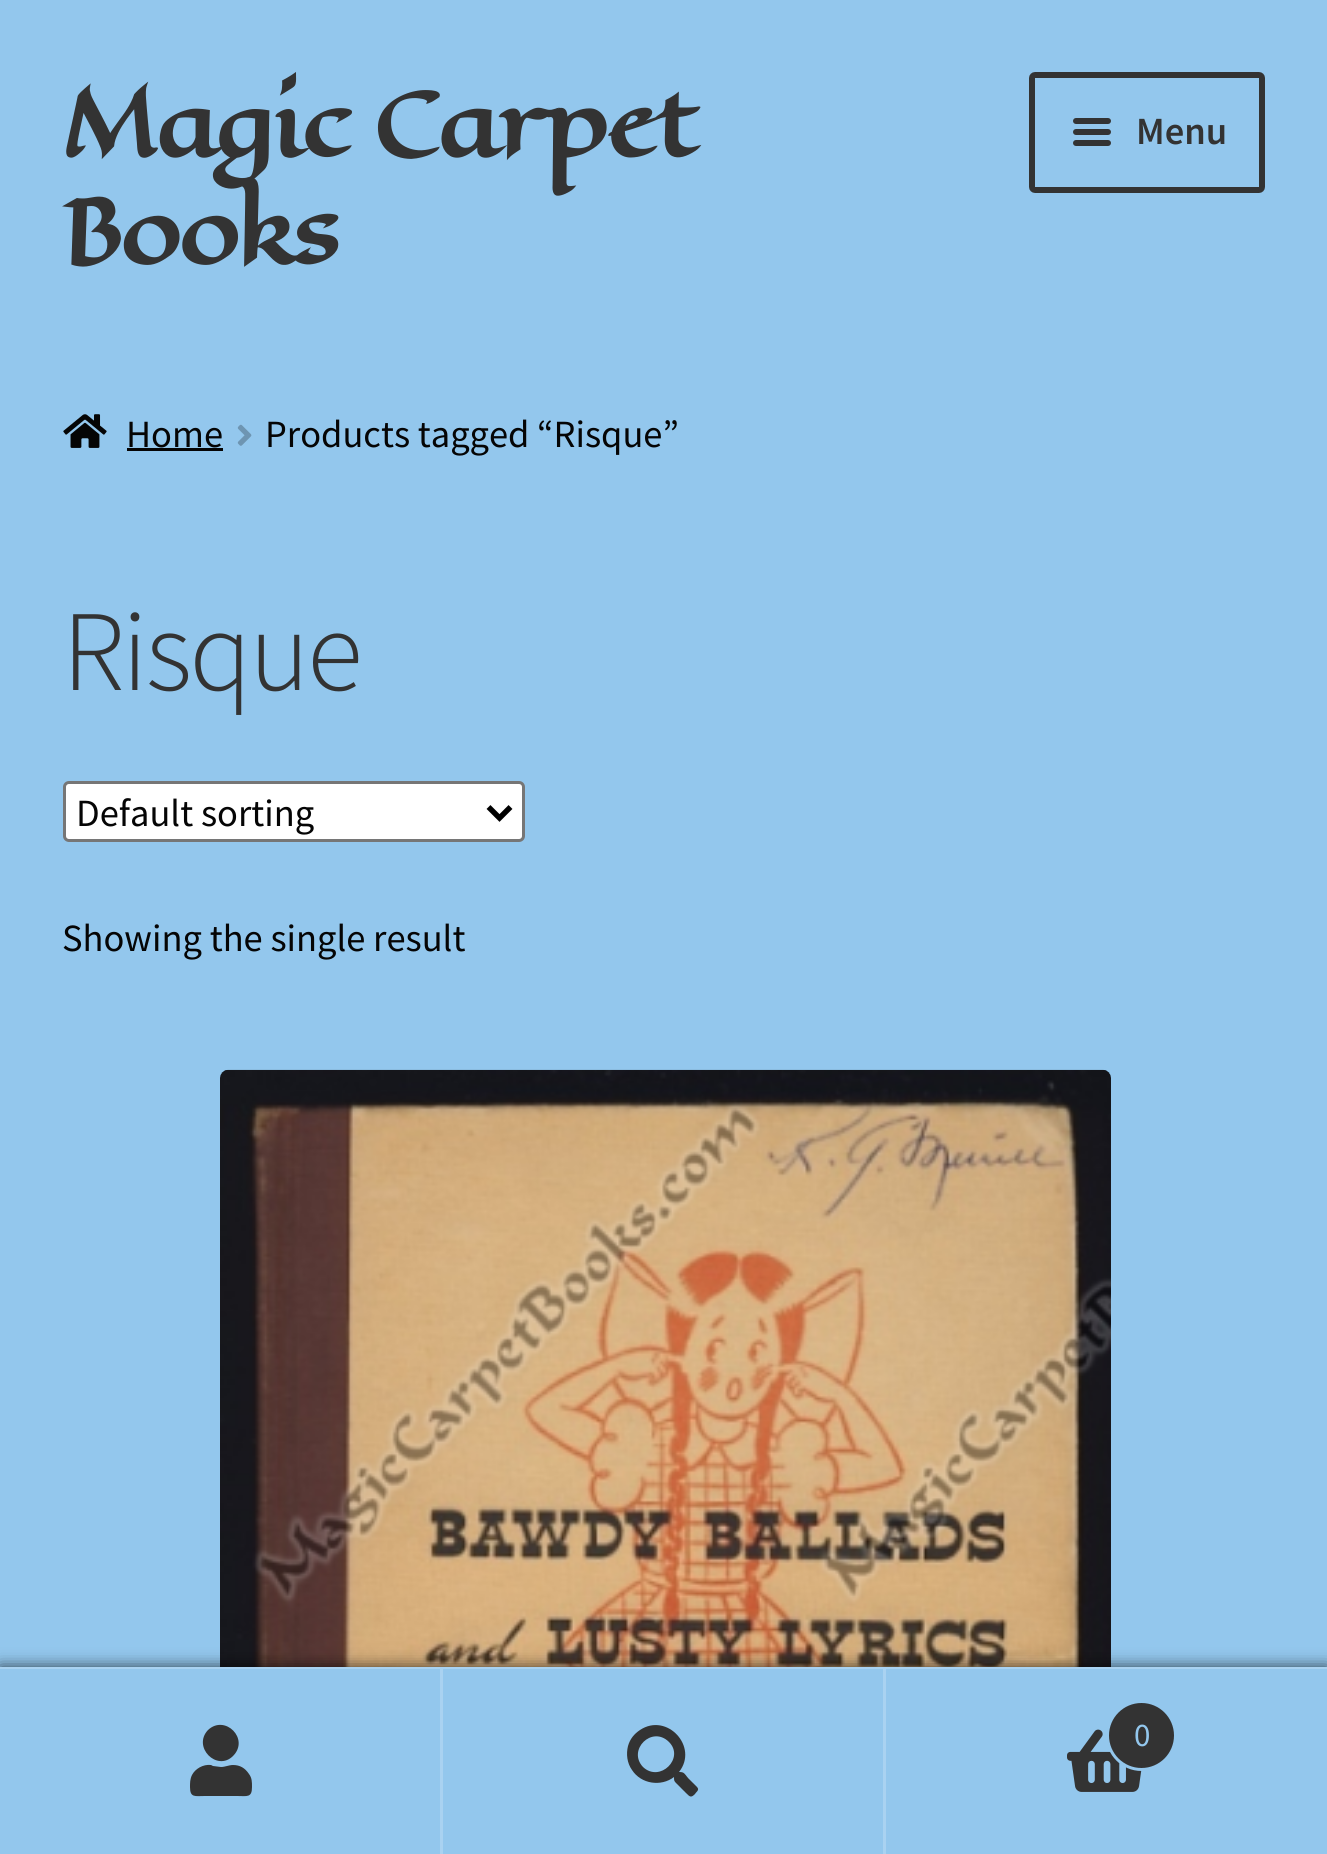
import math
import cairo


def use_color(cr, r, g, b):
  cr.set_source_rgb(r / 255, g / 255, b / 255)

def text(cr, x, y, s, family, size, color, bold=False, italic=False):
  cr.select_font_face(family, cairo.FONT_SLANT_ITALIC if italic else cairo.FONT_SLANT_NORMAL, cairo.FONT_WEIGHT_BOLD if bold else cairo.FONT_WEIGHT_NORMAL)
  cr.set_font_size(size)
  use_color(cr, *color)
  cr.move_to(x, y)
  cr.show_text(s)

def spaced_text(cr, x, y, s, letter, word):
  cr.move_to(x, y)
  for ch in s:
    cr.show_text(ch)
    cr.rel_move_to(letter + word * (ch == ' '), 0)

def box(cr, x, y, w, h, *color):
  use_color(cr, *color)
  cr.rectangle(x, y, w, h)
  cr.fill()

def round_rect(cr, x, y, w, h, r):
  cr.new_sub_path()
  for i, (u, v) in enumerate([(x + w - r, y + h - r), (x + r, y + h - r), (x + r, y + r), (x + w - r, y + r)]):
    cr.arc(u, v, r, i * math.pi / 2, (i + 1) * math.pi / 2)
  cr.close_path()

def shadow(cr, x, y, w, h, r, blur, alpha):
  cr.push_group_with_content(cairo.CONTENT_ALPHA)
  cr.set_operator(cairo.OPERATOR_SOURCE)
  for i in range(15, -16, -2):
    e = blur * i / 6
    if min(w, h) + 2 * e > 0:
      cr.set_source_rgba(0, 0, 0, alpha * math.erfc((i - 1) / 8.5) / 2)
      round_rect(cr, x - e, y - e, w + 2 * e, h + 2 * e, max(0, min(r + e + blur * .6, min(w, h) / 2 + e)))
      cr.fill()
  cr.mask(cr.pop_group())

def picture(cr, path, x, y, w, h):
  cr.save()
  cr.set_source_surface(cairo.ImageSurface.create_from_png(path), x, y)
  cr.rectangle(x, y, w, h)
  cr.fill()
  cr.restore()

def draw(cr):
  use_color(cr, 147, 199, 237)
  cr.paint()
  round_rect(cr, 1032, 75, 230, 115, 3)
  use_color(cr, 51, 51, 51)
  cr.set_line_width(6)
  cr.stroke()
  round_rect(cr, 1073, 118, 38, 6, 3)
  cr.fill()
  round_rect(cr, 1073, 129, 38, 6, 3)
  cr.fill()
  round_rect(cr, 1073, 140, 38, 6, 3)
  cr.fill()
  picture(cr, "img_01.png", 63, 414, 44, 34)
  box(cr, 127, 448, 96, 3, 5, 5, 5)
  picture(cr, "img_02.png", 237, 424, 15, 22)
  use_color(cr, 255, 255, 255)
  round_rect(cr, 64.5, 782.5, 459, 58, 4.5)
  cr.fill_preserve()
  use_color(cr, 118, 118, 118)
  cr.set_line_width(3)
  cr.stroke()
  cr.new_path()
  cr.move_to(488.5, 807)
  cr.line_to(499.5, 818)
  cr.line_to(510.5, 807)
  use_color(cr, 0, 0, 0)
  cr.set_line_width(5.5)
  cr.stroke()
  picture(cr, "img_03.png", 220, 1069, 891, 598)
  use_color(cr, 0, 0, 0)
  shadow(cr, 0, 1667, 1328, 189, 0, 8, 0.7)
  box(cr, 0, 1667, 1327, 2, 169, 210, 241)
  box(cr, 0, 1669, 440, 185, 147, 199, 237)
  box(cr, 440, 1669, 3, 185, 169, 210, 241)
  use_color(cr, 51, 51, 51)
  cr.new_path()
  cr.move_to(233, 1756)
  cr.curve_to(217, 1772, 192, 1747, 208, 1730)
  cr.curve_to(225, 1714, 250, 1739, 233, 1756)
  cr.close_path()
  cr.move_to(233, 1765)
  cr.curve_to(240, 1765, 245, 1768, 249, 1774)
  cr.curve_to(252, 1778, 252, 1782, 252, 1787)
  cr.curve_to(252, 1798, 247, 1796, 237, 1796)
  cr.line_to(205, 1796)
  cr.curve_to(195, 1796, 190, 1798, 190, 1787)
  cr.curve_to(190, 1783, 190, 1779, 192, 1775)
  cr.curve_to(195, 1769, 203, 1764, 211, 1765)
  cr.line_to(213, 1766)
  cr.line_to(221, 1767)
  cr.curve_to(225, 1767, 229, 1765, 233, 1765)
  cr.close_path()
  cr.fill()
  box(cr, 443, 1669, 440, 185, 147, 199, 237)
  box(cr, 883, 1669, 3, 185, 169, 210, 241)
  use_color(cr, 51, 51, 51)
  cr.new_path()
  cr.move_to(697, 1787)
  cr.curve_to(700, 1790, 696, 1792, 695, 1794)
  cr.curve_to(691, 1798, 690, 1797, 686, 1793)
  cr.line_to(677, 1784)
  cr.curve_to(674, 1781, 674, 1781, 674, 1777)
  cr.curve_to(661, 1787, 641, 1784, 632, 1770)
  cr.curve_to(627, 1763, 626, 1754, 628, 1746)
  cr.curve_to(630, 1739, 634, 1734, 640, 1730)
  cr.curve_to(667, 1712, 699, 1747, 679, 1772)
  cr.curve_to(684, 1772, 684, 1773, 688, 1778)
  cr.close_path()
  cr.move_to(643, 1767)
  cr.curve_to(660, 1783, 685, 1758, 669, 1742)
  cr.curve_to(652, 1725, 627, 1750, 643, 1767)
  cr.close_path()
  cr.fill()
  box(cr, 886, 1669, 441, 185, 147, 199, 237)
  picture(cr, "img_04.png", 1067, 1729, 75, 63)
  use_color(cr, 51, 51, 51)
  cr.arc(1141.5, 1735.5, 34, 0, 2 * math.pi)
  cr.fill_preserve()
  use_color(cr, 147, 199, 237)
  cr.set_line_width(3)
  cr.stroke()
  cr.select_font_face("Eagle Lake", cairo.FONT_SLANT_NORMAL, cairo.FONT_WEIGHT_BOLD)
  cr.set_font_size(88)
  use_color(cr, 51, 51, 51)
  spaced_text(cr, 62, 156, "Magic Carpet", -2.75, 0)
  spaced_text(cr, 62, 263, "Books", -2.75, 0)
  text(cr, 1136, 144, "Menu", "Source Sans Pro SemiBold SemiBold", 38.5, (51, 51, 51))
  text(cr, 126, 447, "Home", "Source Sans Pro", 38.5, (5, 5, 5))
  text(cr, 265, 447, "Products tagged “Risque”", "Source Sans Pro", 38.5, (5, 5, 5))
  cr.select_font_face("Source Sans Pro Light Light")
  cr.set_font_size(115)
  use_color(cr, 51, 51, 51)
  spaced_text(cr, 62, 690, "Risque", -2.75, 0)
  text(cr, 76, 826, "Default sorting", "Source Sans Pro", 38.5, (5, 5, 5))
  text(cr, 62, 951, "Showing the single result", "Source Sans Pro", 38.5, (5, 5, 5))
  text(cr, 1134, 1746, "0", "Source Sans Pro", 33, (147, 199, 237))


surface = cairo.ImageSurface(cairo.FORMAT_RGB24, 1327, 1854)
cr = cairo.Context(surface)
options = cairo.FontOptions()
options.set_hint_metrics(cairo.HINT_METRICS_OFF)
options.set_hint_style(cairo.HINT_STYLE_NONE)
cr.set_font_options(options)
cr.set_miter_limit(4)
draw(cr)
surface.write_to_png("out.png")
